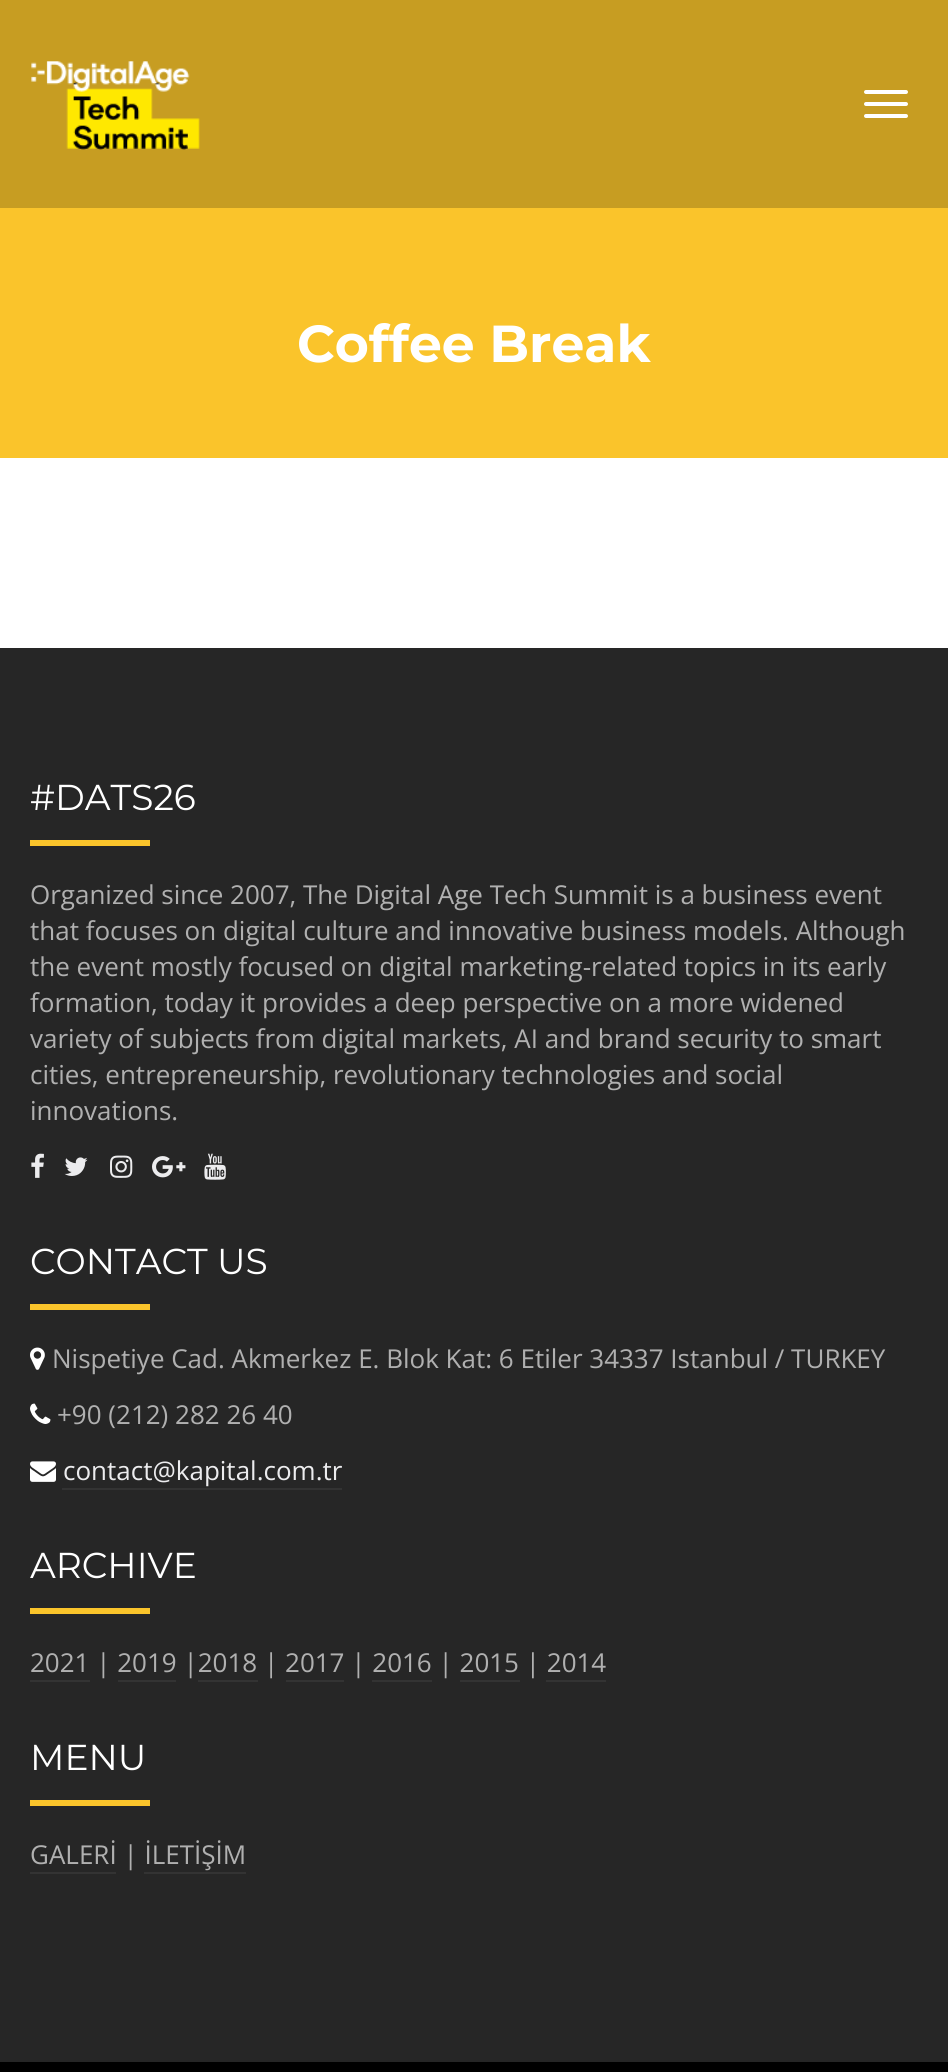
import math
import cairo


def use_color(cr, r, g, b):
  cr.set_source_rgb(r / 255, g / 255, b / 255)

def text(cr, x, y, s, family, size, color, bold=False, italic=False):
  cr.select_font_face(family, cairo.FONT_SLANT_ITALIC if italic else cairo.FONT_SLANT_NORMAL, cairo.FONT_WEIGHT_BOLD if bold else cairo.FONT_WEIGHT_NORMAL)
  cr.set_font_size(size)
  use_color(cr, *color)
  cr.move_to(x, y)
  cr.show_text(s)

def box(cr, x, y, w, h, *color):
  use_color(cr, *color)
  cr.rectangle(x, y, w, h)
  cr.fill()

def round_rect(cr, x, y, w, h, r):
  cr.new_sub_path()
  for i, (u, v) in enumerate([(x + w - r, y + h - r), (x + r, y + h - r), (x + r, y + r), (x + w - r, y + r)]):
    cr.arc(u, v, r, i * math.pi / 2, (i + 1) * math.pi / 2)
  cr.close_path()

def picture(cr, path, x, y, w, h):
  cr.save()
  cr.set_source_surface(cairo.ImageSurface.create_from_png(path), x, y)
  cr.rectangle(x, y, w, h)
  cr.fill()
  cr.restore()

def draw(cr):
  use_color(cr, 255, 255, 255)
  cr.paint()
  box(cr, 0, 0, 948, 208, 199, 157, 34)
  picture(cr, "img_01.png", 31, 61, 169, 89)
  use_color(cr, 255, 255, 255)
  round_rect(cr, 864, 90, 44, 4, 2)
  cr.fill()
  round_rect(cr, 864, 102, 44, 4, 2)
  cr.fill()
  round_rect(cr, 864, 114, 44, 4, 2)
  cr.fill()
  box(cr, 0, 208, 948, 250, 250, 196, 43)
  box(cr, 0, 648, 948, 1414, 38, 38, 38)
  box(cr, 30, 840, 120, 6, 250, 196, 43)
  picture(cr, "img_02.png", 31, 1153, 13, 25)
  picture(cr, "img_03.png", 64, 1157, 24, 19)
  picture(cr, "img_04.png", 110, 1155, 23, 23)
  picture(cr, "img_05.png", 152, 1156, 34, 22)
  picture(cr, "img_06.png", 204, 1153, 22, 27)
  box(cr, 30, 1304, 120, 6, 250, 196, 43)
  picture(cr, "img_07.png", 30, 1347, 15, 23)
  picture(cr, "img_08.png", 30, 1403, 21, 21)
  picture(cr, "img_09.png", 30, 1461, 26, 21)
  box(cr, 62, 1488, 280, 2, 51, 51, 51)
  box(cr, 30, 1608, 120, 6, 250, 196, 43)
  box(cr, 30, 1680, 60, 2, 51, 51, 51)
  box(cr, 118, 1680, 58, 2, 51, 51, 51)
  box(cr, 198, 1680, 60, 2, 51, 51, 51)
  box(cr, 286, 1680, 58, 2, 51, 51, 51)
  box(cr, 372, 1680, 60, 2, 51, 51, 51)
  box(cr, 460, 1680, 60, 2, 51, 51, 51)
  box(cr, 546, 1680, 60, 2, 51, 51, 51)
  box(cr, 30, 1800, 120, 6, 250, 196, 43)
  box(cr, 30, 1872, 86, 2, 51, 51, 51)
  box(cr, 144, 1872, 102, 2, 51, 51, 51)
  box(cr, 0, 2062, 948, 10, 0, 0, 0)
  text(cr, 297, 362, "Coffee Break", "Montserrat", 52, (255, 255, 255), bold=True)
  text(cr, 30, 810, "#DATS26", "Montserrat", 36, (255, 255, 255))
  text(cr, 30, 904, "Organized since 2007, The Digital Age Tech Summit is a business event", "Open Sans", 26, (176, 176, 176))
  text(cr, 30, 940, "that focuses on digital culture and innovative business models. Although", "Open Sans", 26, (176, 176, 176))
  text(cr, 30, 976, "the event mostly focused on digital marketing-related topics in its early", "Open Sans", 26, (176, 176, 176))
  text(cr, 30, 1012, "formation, today it provides a deep perspective on a more widened", "Open Sans", 26, (176, 176, 176))
  text(cr, 30, 1048, "variety of subjects from digital markets, AI and brand security to smart", "Open Sans", 26, (176, 176, 176))
  text(cr, 30, 1084, "cities, entrepreneurship, revolutionary technologies and social", "Open Sans", 26, (176, 176, 176))
  text(cr, 30, 1120, "innovations.", "Open Sans", 26, (176, 176, 176))
  text(cr, 30, 1274, "CONTACT US", "Montserrat", 36, (255, 255, 255))
  text(cr, 52, 1368, "Nispetiye Cad. Akmerkez E. Blok Kat: 6 Etiler 34337 Istanbul / TURKEY", "Open Sans", 26, (176, 176, 176))
  text(cr, 57, 1424, "+90 (212) 282 26 40", "Open Sans", 26, (176, 176, 176))
  text(cr, 63, 1480, "contact@kapital.com.tr", "Open Sans", 26, (236, 236, 238))
  text(cr, 30, 1578, "ARCHIVE", "Montserrat", 36, (255, 255, 255))
  text(cr, 30, 1672, "2021 | 2019 |2018 | 2017 | 2016 | 2015 | 2014", "Open Sans", 26, (176, 176, 176))
  text(cr, 30, 1770, "MENU", "Montserrat", 36, (255, 255, 255))
  text(cr, 30, 1864, "GALERİ | İLETİŞİM", "Open Sans", 26, (176, 176, 176))


surface = cairo.ImageSurface(cairo.FORMAT_RGB24, 948, 2072)
cr = cairo.Context(surface)
options = cairo.FontOptions()
options.set_hint_metrics(cairo.HINT_METRICS_OFF)
options.set_hint_style(cairo.HINT_STYLE_NONE)
cr.set_font_options(options)
cr.set_miter_limit(4)
draw(cr)
surface.write_to_png("out.png")
